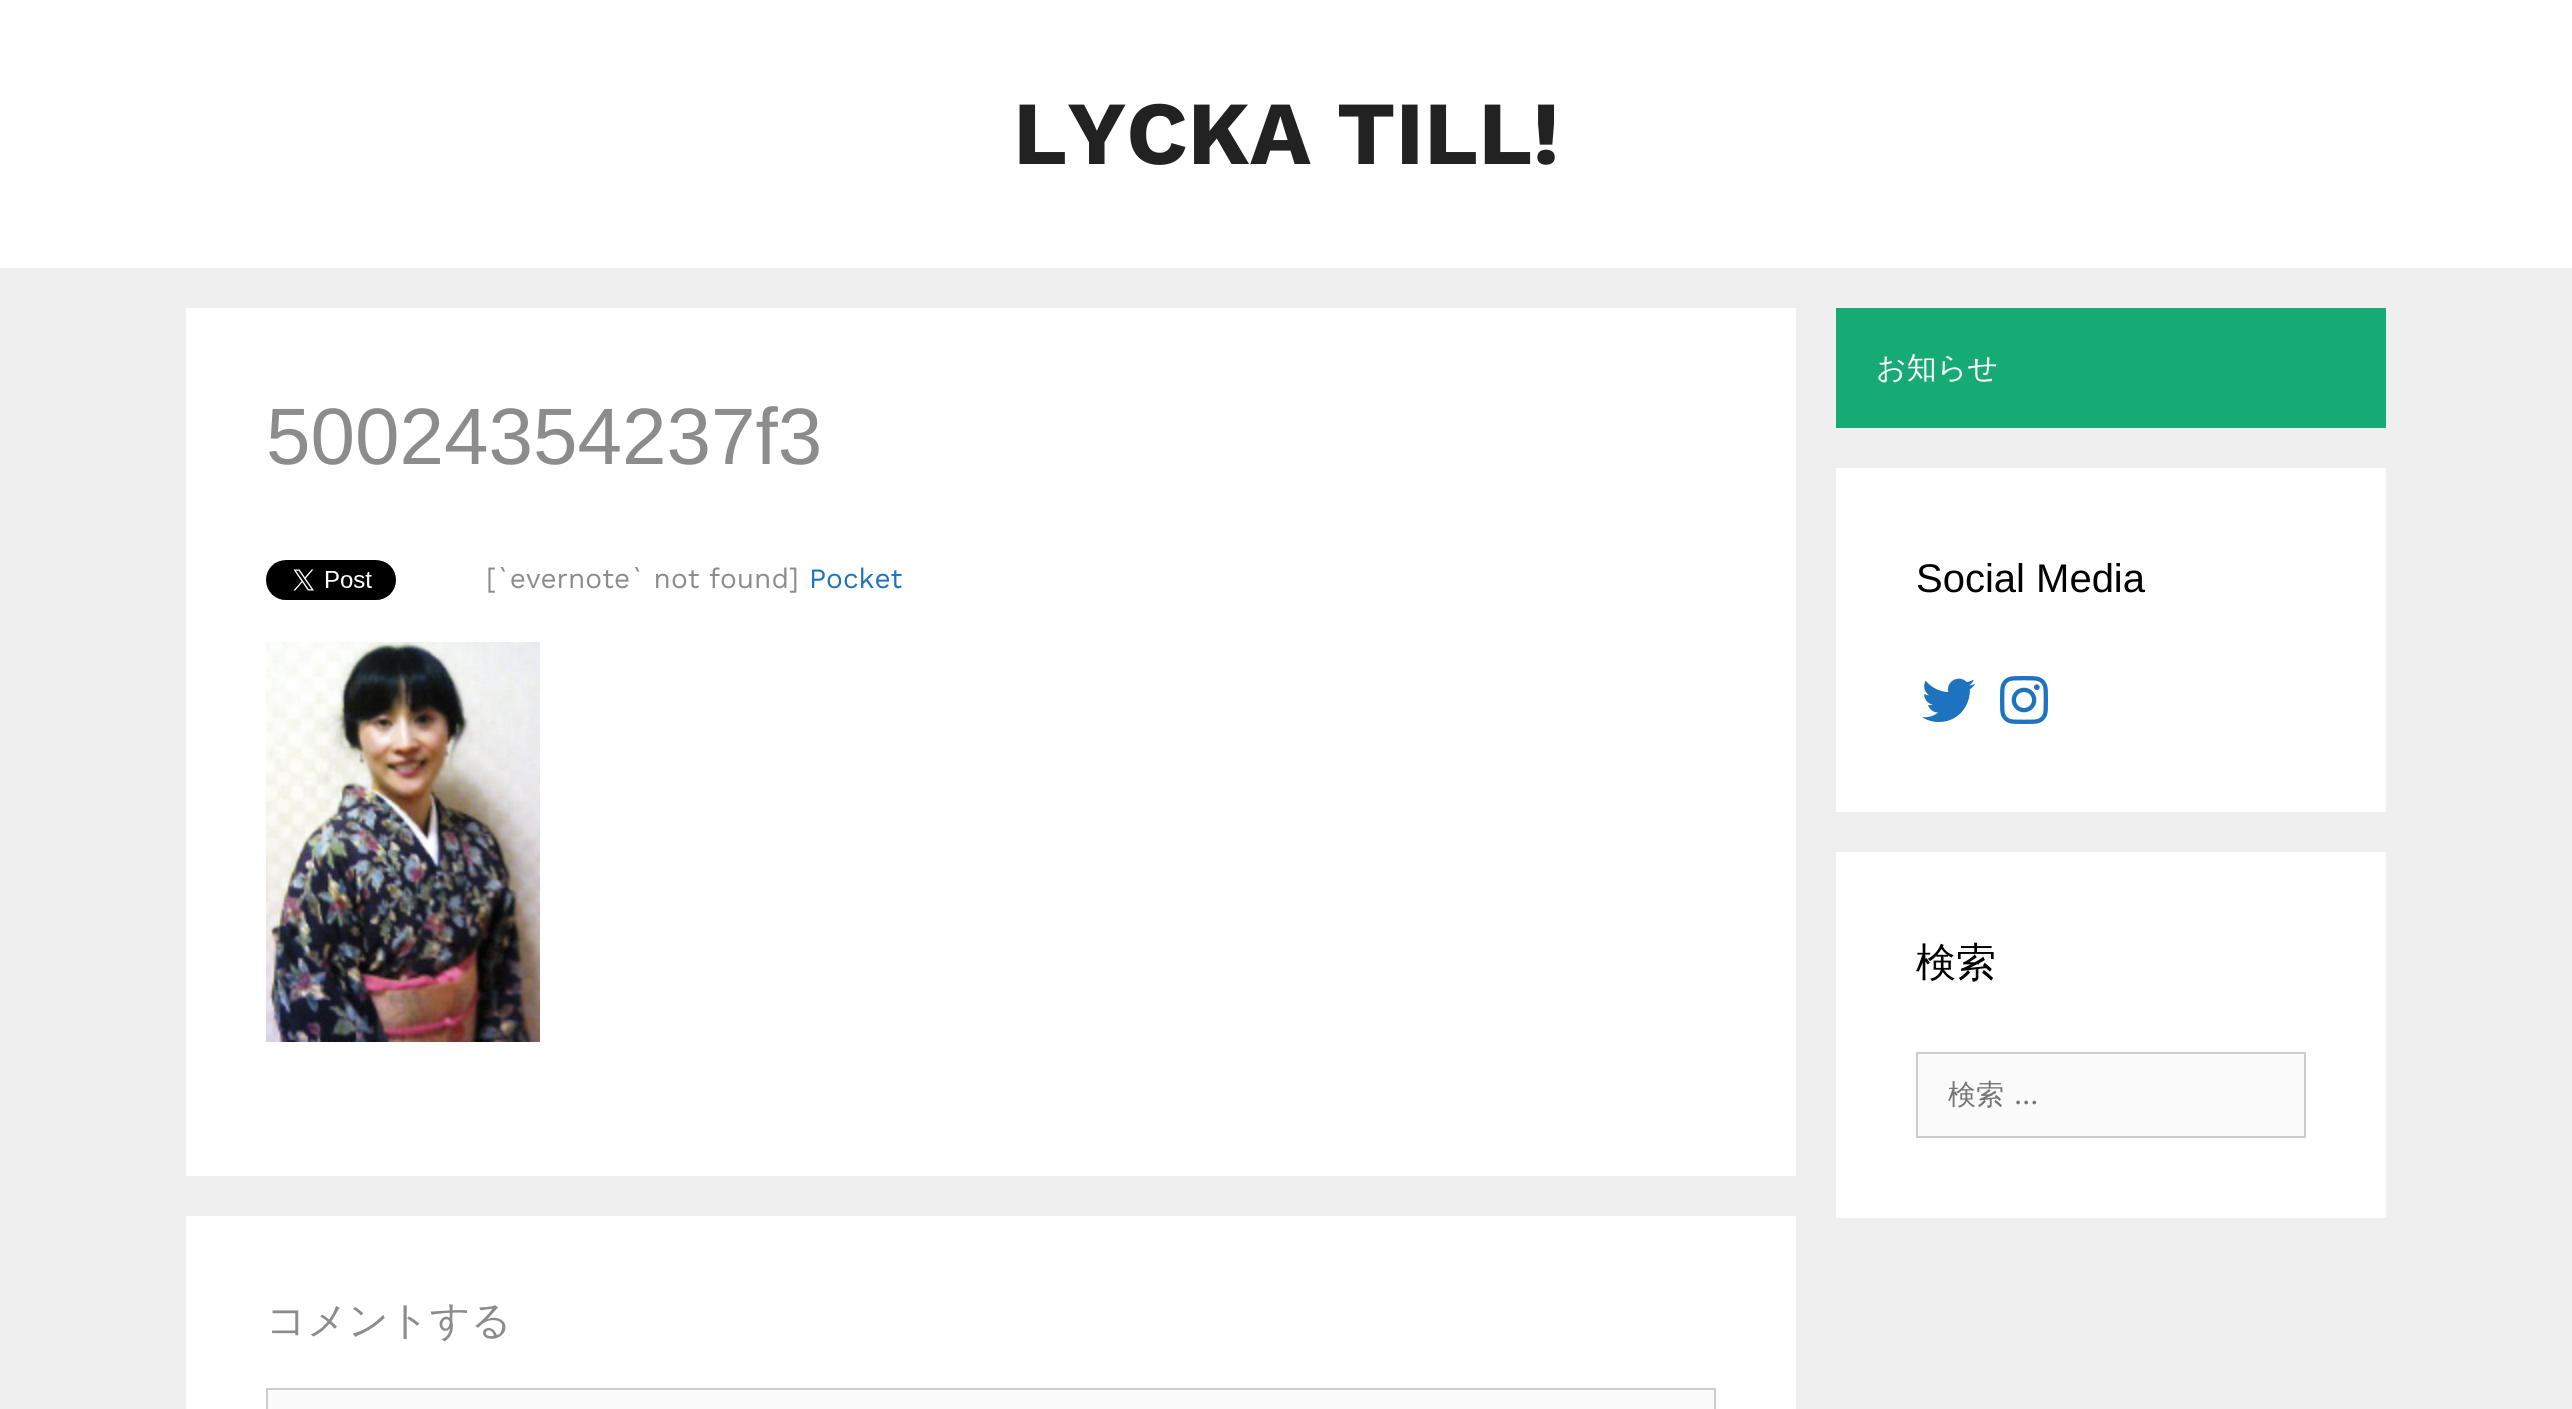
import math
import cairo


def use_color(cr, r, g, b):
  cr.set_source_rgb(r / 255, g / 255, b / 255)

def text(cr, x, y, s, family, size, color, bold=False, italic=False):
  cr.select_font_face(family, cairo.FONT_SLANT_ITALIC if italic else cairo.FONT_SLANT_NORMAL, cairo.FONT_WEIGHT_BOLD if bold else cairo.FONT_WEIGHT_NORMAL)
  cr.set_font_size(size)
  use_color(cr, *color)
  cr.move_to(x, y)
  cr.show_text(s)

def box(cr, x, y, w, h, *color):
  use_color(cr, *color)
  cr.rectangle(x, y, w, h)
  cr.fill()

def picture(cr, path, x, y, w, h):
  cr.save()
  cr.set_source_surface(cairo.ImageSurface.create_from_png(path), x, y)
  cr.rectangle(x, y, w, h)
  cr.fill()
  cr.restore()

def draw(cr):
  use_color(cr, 239, 239, 239)
  cr.paint()
  box(cr, 0, 0, 2572, 268, 255, 255, 255)
  box(cr, 186, 308, 1610, 868, 255, 255, 255)
  picture(cr, "img_01.png", 266, 560, 130, 40)
  picture(cr, "img_02.png", 266, 642, 274, 400)
  box(cr, 186, 1216, 1610, 193, 255, 255, 255)
  use_color(cr, 250, 250, 250)
  cr.rectangle(267, 1389, 1448, 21)
  cr.fill_preserve()
  use_color(cr, 204, 204, 204)
  cr.stroke()
  box(cr, 1836, 308, 550, 120, 22, 170, 116)
  box(cr, 1836, 468, 550, 344, 255, 255, 255)
  picture(cr, "img_03.png", 1922, 678, 54, 44)
  picture(cr, "img_04.png", 2000, 676, 48, 48)
  box(cr, 1836, 852, 550, 366, 255, 255, 255)
  use_color(cr, 250, 250, 250)
  cr.rectangle(1917, 1053, 388, 84)
  cr.fill_preserve()
  use_color(cr, 204, 204, 204)
  cr.stroke()
  text(cr, 1013, 164, "LYCKA TILL!", "Work Sans", 90, (34, 34, 34), bold=True)
  text(cr, 266, 464, "50024354237f3", "Liberation Sans", 80, (140, 140, 140))
  text(cr, 486, 588, "[`evernote` not found]", "Work Sans", 28, (140, 140, 140))
  text(cr, 809, 588, "Pocket", "Work Sans", 28, (30, 115, 190))
  text(cr, 266, 1334, "コメントする", "WenQuanYi Zen Hei Medium", 40, (140, 140, 140))
  text(cr, 1876, 378, "お知らせ", "WenQuanYi Zen Hei Medium", 30, (255, 255, 255))
  text(cr, 1916, 592, "Social Media", "Liberation Sans", 40, (0, 0, 0))
  text(cr, 1916, 976, "検索", "WenQuanYi Zen Hei Medium", 40, (0, 0, 0))
  text(cr, 1948, 1104, "検索", "WenQuanYi Zen Hei Medium", 28, (117, 117, 117))
  text(cr, 2014, 1104, "…", "Work Sans", 28, (117, 117, 117))


surface = cairo.ImageSurface(cairo.FORMAT_RGB24, 2572, 1409)
cr = cairo.Context(surface)
options = cairo.FontOptions()
options.set_hint_metrics(cairo.HINT_METRICS_OFF)
options.set_hint_style(cairo.HINT_STYLE_NONE)
cr.set_font_options(options)
cr.set_miter_limit(4)
draw(cr)
surface.write_to_png("out.png")
